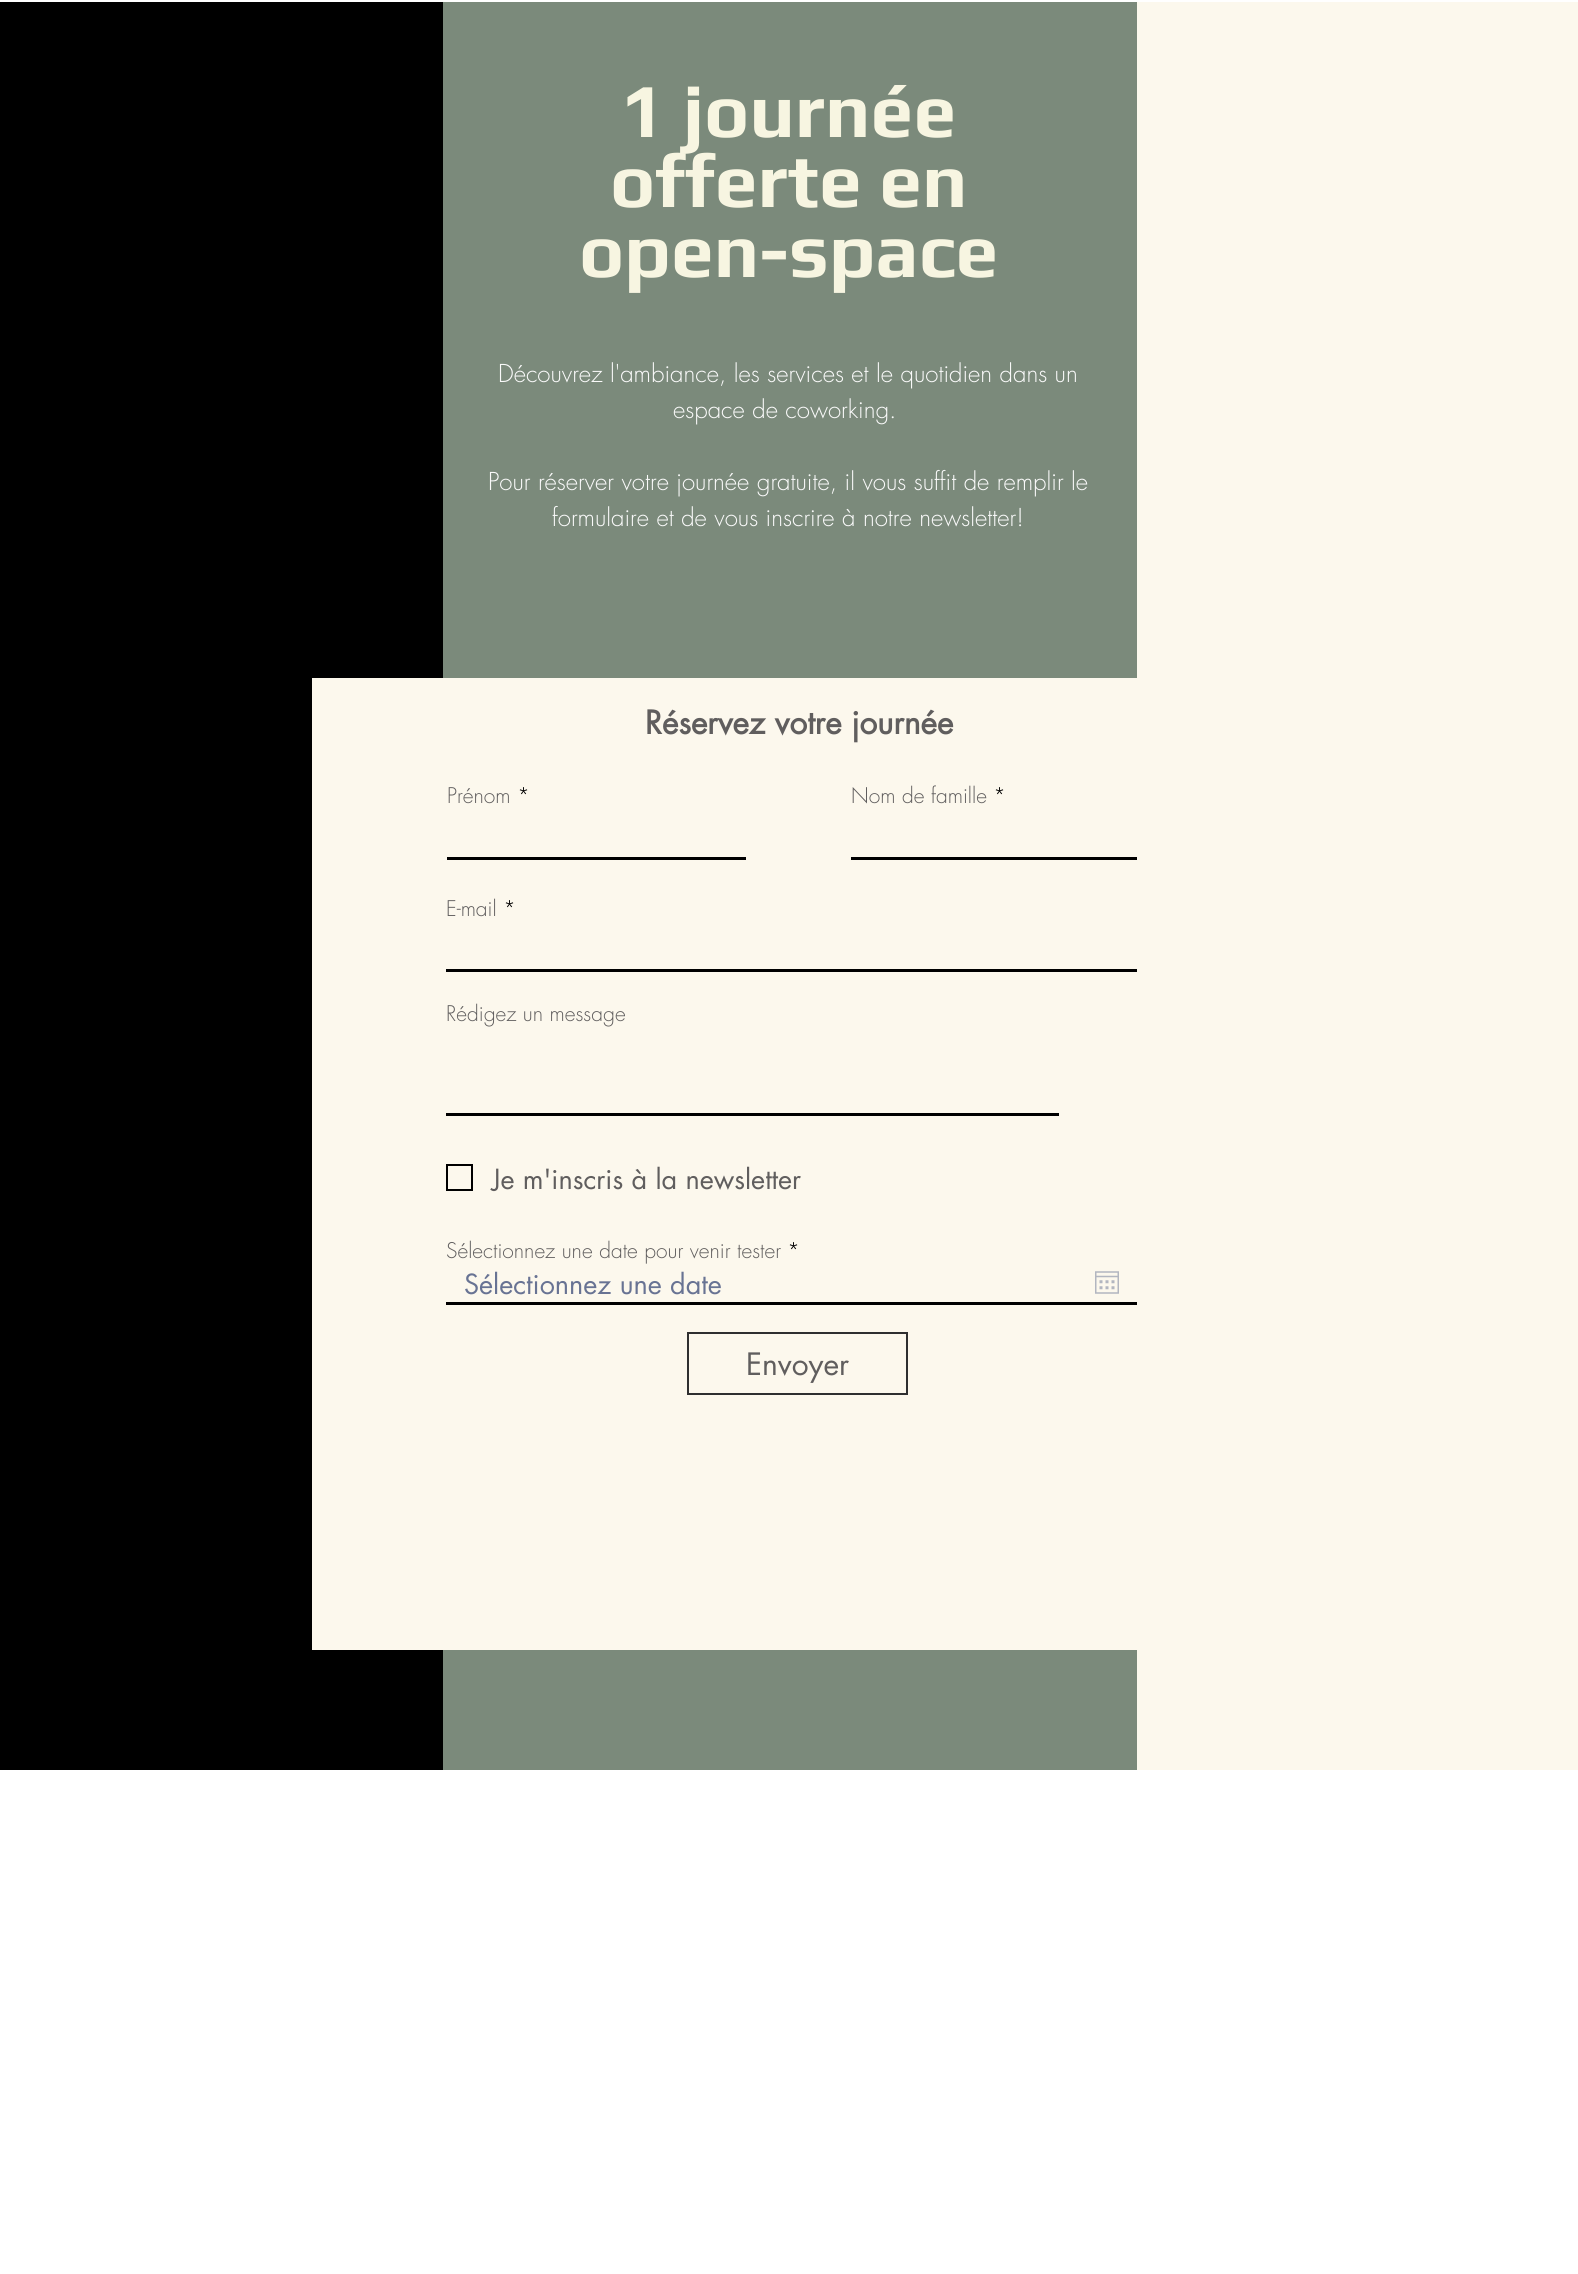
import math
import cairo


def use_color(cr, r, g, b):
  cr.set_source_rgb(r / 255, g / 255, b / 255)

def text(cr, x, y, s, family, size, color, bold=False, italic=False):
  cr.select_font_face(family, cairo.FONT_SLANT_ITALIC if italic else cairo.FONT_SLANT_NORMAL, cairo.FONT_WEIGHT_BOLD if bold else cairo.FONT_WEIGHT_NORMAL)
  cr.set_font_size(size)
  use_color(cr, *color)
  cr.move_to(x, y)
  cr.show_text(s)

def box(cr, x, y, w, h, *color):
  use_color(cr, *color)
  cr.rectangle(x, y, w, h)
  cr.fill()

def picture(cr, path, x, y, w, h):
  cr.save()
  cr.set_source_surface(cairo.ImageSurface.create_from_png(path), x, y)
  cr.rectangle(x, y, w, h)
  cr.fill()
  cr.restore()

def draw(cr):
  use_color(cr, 255, 255, 255)
  cr.paint()
  box(cr, 0, 2, 443, 1768, 0, 0, 0)
  box(cr, 443, 2, 694, 1768, 123, 138, 123)
  box(cr, 312, 678, 825, 972, 252, 248, 237)
  box(cr, 447, 857, 299, 3, 0, 0, 0)
  box(cr, 851, 857, 286, 3, 0, 0, 0)
  box(cr, 446, 969, 691, 3, 0, 0, 0)
  box(cr, 446, 1113, 613, 3, 0, 0, 0)
  cr.rectangle(447, 1165, 25, 25)
  cr.stroke()
  box(cr, 446, 1302, 691, 3, 0, 0, 0)
  picture(cr, "img_01.png", 1095, 1271, 24, 23)
  cr.rectangle(688, 1333, 219, 61)
  use_color(cr, 47, 47, 48)
  cr.stroke()
  box(cr, 1137, 2, 441, 1768, 252, 248, 237)
  text(cr, 621, 137, "1 journée", "Play", 76.5, (247, 245, 225), bold=True)
  text(cr, 610, 207, "offerte en", "Play", 76.5, (247, 245, 225), bold=True)
  text(cr, 579, 277, "open-space", "Play", 76.5, (247, 245, 225), bold=True)
  text(cr, 498, 382, "Découvrez l'ambiance, les services et le quotidien dans un", "futura Light", 24, (250, 250, 250))
  text(cr, 673, 418, "espace de coworking.", "futura Light", 24, (250, 250, 250))
  text(cr, 488, 490, "Pour réserver votre journée gratuite, il vous suffit de remplir le", "futura Light", 24, (250, 250, 250))
  text(cr, 552, 526, "formulaire et de vous inscrire à notre newsletter!", "futura Light", 24, (250, 250, 250))
  text(cr, 645, 734, "Réservez votre journée", "futura", 31.5, (96, 94, 94), bold=True)
  text(cr, 447, 803, "Prénom", "futura Light", 21, (96, 94, 94))
  text(cr, 517, 803, "*", "futura Light", 21, (0, 0, 0))
  text(cr, 851, 803, "Nom de famille", "futura Light", 21, (96, 94, 94))
  text(cr, 993, 803, "*", "futura Light", 21, (0, 0, 0))
  text(cr, 446, 916, "E-mail", "futura Light", 21, (96, 94, 94))
  text(cr, 503, 916, "*", "futura Light", 21, (0, 0, 0))
  text(cr, 446, 1021, "Rédigez un message", "futura Light", 21, (96, 94, 94))
  text(cr, 492, 1189, "Je m'inscris à la newsletter", "futura", 27, (96, 94, 94))
  text(cr, 446, 1258, "Sélectionnez une date pour venir tester", "futura Light", 21, (96, 94, 94))
  text(cr, 787, 1258, "*", "futura Light", 21, (0, 0, 0))
  text(cr, 464, 1294, "Sélectionnez une date", "futura", 27, (104, 115, 147))
  text(cr, 746, 1375, "Envoyer", "futura", 30, (96, 94, 94))


surface = cairo.ImageSurface(cairo.FORMAT_RGB24, 1578, 2274)
cr = cairo.Context(surface)
options = cairo.FontOptions()
options.set_hint_metrics(cairo.HINT_METRICS_OFF)
options.set_hint_style(cairo.HINT_STYLE_NONE)
cr.set_font_options(options)
cr.set_miter_limit(4)
draw(cr)
surface.write_to_png("out.png")
